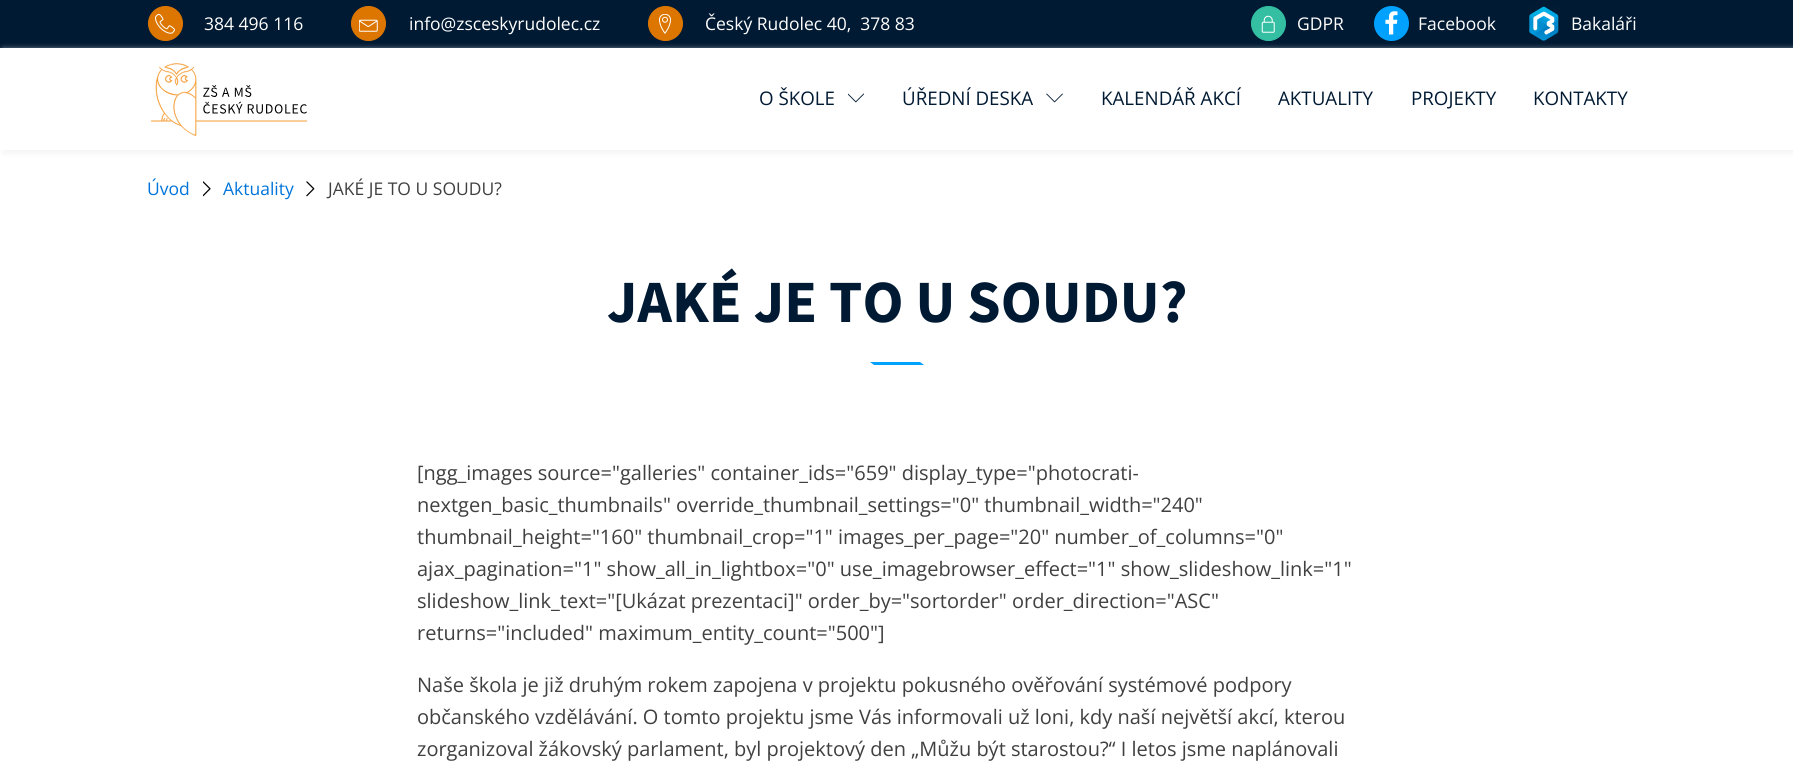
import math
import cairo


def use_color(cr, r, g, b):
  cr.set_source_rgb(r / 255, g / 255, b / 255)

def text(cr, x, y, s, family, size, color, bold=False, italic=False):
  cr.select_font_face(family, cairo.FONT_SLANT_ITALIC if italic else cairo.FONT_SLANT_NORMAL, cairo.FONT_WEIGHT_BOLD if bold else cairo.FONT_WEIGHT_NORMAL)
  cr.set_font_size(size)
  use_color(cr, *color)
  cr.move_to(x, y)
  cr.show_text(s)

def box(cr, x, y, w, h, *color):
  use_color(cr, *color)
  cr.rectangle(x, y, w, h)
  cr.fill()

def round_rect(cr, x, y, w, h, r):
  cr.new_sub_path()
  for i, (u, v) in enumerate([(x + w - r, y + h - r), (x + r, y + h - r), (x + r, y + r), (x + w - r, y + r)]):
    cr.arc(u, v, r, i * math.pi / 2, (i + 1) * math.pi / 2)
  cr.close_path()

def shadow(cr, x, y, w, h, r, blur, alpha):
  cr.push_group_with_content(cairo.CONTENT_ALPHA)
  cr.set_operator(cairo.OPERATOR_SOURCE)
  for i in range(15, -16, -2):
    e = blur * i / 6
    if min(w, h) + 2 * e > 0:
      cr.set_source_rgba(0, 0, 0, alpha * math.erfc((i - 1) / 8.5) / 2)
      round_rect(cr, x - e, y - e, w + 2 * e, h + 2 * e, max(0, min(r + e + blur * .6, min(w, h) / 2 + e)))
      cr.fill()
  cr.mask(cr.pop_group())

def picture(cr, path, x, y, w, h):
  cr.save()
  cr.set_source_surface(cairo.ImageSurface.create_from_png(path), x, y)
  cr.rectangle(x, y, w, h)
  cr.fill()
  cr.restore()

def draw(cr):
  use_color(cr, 255, 255, 255)
  cr.paint()
  box(cr, 0, 0, 1793, 48, 1, 26, 51)
  use_color(cr, 221, 118, 0)
  cr.arc(165.5, 23.5, 17, 0, 2 * math.pi)
  cr.fill_preserve()
  cr.set_line_width(1)
  cr.stroke()
  picture(cr, "img_01.png", 155, 14, 20, 20)
  cr.arc(368.5, 23.5, 17, 0, 2 * math.pi)
  cr.fill_preserve()
  cr.stroke()
  picture(cr, "img_02.png", 359, 19, 19, 13)
  cr.arc(665.5, 23.5, 17, 0, 2 * math.pi)
  cr.fill_preserve()
  cr.stroke()
  picture(cr, "img_03.png", 659, 14, 12, 20)
  use_color(cr, 52, 191, 163)
  cr.arc(1268.5, 23.5, 17, 0, 2 * math.pi)
  cr.fill_preserve()
  cr.stroke()
  picture(cr, "img_04.png", 1261, 15, 14, 18)
  use_color(cr, 0, 161, 255)
  cr.arc(1391.5, 23.5, 17.5, 0, 2 * math.pi)
  cr.fill()
  picture(cr, "img_05.png", 1385, 11, 13, 24)
  picture(cr, "img_06.png", 1529, 6, 30, 35)
  cr.save()
  cr.set_fill_rule(cairo.FILL_RULE_EVEN_ODD)
  cr.new_path()
  cr.move_to(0, 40)
  cr.line_to(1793, 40)
  cr.line_to(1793, 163)
  cr.line_to(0, 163)
  cr.close_path()
  cr.move_to(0, 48)
  cr.line_to(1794, 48)
  cr.line_to(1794, 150)
  cr.line_to(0, 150)
  cr.close_path()
  cr.clip()
  use_color(cr, 243, 243, 243)
  shadow(cr, 3, 50, 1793, 103, 0, 3, 1)
  cr.restore()
  picture(cr, "img_07.png", 150, 63, 158, 74)
  picture(cr, "img_08.png", 848, 93, 16, 10)
  picture(cr, "img_09.png", 1046, 93, 17, 10)
  picture(cr, "img_10.png", 203, 181, 8, 16)
  picture(cr, "img_11.png", 306, 181, 9, 16)
  cr.new_path()
  cr.move_to(870, 362)
  cr.line_to(920, 362)
  cr.line_to(924, 365)
  cr.line_to(874, 365)
  cr.close_path()
  cr.fill()
  text(cr, 204, 30, "384 496 116", "Open Sans", 17.5, (255, 255, 255))
  text(cr, 409, 30, "info@zsceskyrudolec.cz", "Open Sans", 17.5, (255, 255, 255))
  text(cr, 705, 30, "Český Rudolec 40,  378 83", "Open Sans", 17.5, (255, 255, 255))
  text(cr, 1297, 30, "GDPR", "Open Sans", 17.5, (255, 255, 255))
  text(cr, 1418, 30, "Facebook", "Open Sans", 17.5, (255, 255, 255))
  text(cr, 1571, 30, "Bakaláři", "Open Sans", 17.5, (255, 255, 255))
  text(cr, 759, 105, "O ŠKOLE", "Open Sans", 18.75, (1, 26, 51))
  text(cr, 902, 105, "ÚŘEDNÍ DESKA", "Open Sans", 18.75, (1, 26, 51))
  text(cr, 1101, 105, "KALENDÁŘ AKCÍ", "Open Sans", 18.75, (1, 26, 51))
  text(cr, 1278, 105, "AKTUALITY", "Open Sans", 18.75, (1, 26, 51))
  text(cr, 1411, 105, "PROJEKTY", "Open Sans", 18.75, (1, 26, 51))
  text(cr, 1533, 105, "KONTAKTY", "Open Sans", 18.75, (1, 26, 51))
  text(cr, 147, 195, "Úvod", "Open Sans", 17.5, (0, 116, 219))
  text(cr, 223, 195, "Aktuality", "Open Sans", 17.5, (0, 116, 219))
  text(cr, 328, 195, "JAKÉ JE TO U SOUDU?", "Open Sans", 17.5, (64, 64, 64))
  text(cr, 607, 322, "JAKÉ JE TO U SOUDU?", "Source Sans Pro", 60, (1, 26, 51), bold=True)
  text(cr, 417, 480, "[ngg_images source=\"galleries\" container_ids=\"659\" display_type=\"photocrati-", "Open Sans", 20, (64, 64, 64))
  text(cr, 417, 512, "nextgen_basic_thumbnails\" override_thumbnail_settings=\"0\" thumbnail_width=\"240\"", "Open Sans", 20, (64, 64, 64))
  text(cr, 417, 544, "thumbnail_height=\"160\" thumbnail_crop=\"1\" images_per_page=\"20\" number_of_columns=\"0\"", "Open Sans", 20, (64, 64, 64))
  text(cr, 417, 576, "ajax_pagination=\"1\" show_all_in_lightbox=\"0\" use_imagebrowser_effect=\"1\" show_slideshow_link=\"1\"", "Open Sans", 20, (64, 64, 64))
  text(cr, 417, 608, "slideshow_link_text=\"[Ukázat prezentaci]\" order_by=\"sortorder\" order_direction=\"ASC\"", "Open Sans", 20, (64, 64, 64))
  text(cr, 417, 640, "returns=\"included\" maximum_entity_count=\"500\"]", "Open Sans", 20, (64, 64, 64))
  text(cr, 417, 692, "Naše škola je již druhým rokem zapojena v projektu pokusného ověřování systémové podpory", "Open Sans", 20, (64, 64, 64))
  text(cr, 417, 724, "občanského vzdělávání. O tomto projektu jsme Vás informovali už loni, kdy naší největší akcí, kterou", "Open Sans", 20, (64, 64, 64))
  text(cr, 417, 756, "zorganizoval žákovský parlament, byl projektový den „Můžu být starostou?“ I letos jsme naplánovali", "Open Sans", 20, (64, 64, 64))


surface = cairo.ImageSurface(cairo.FORMAT_RGB24, 1793, 765)
cr = cairo.Context(surface)
options = cairo.FontOptions()
options.set_hint_metrics(cairo.HINT_METRICS_OFF)
options.set_hint_style(cairo.HINT_STYLE_NONE)
cr.set_font_options(options)
cr.set_miter_limit(4)
draw(cr)
surface.write_to_png("out.png")
